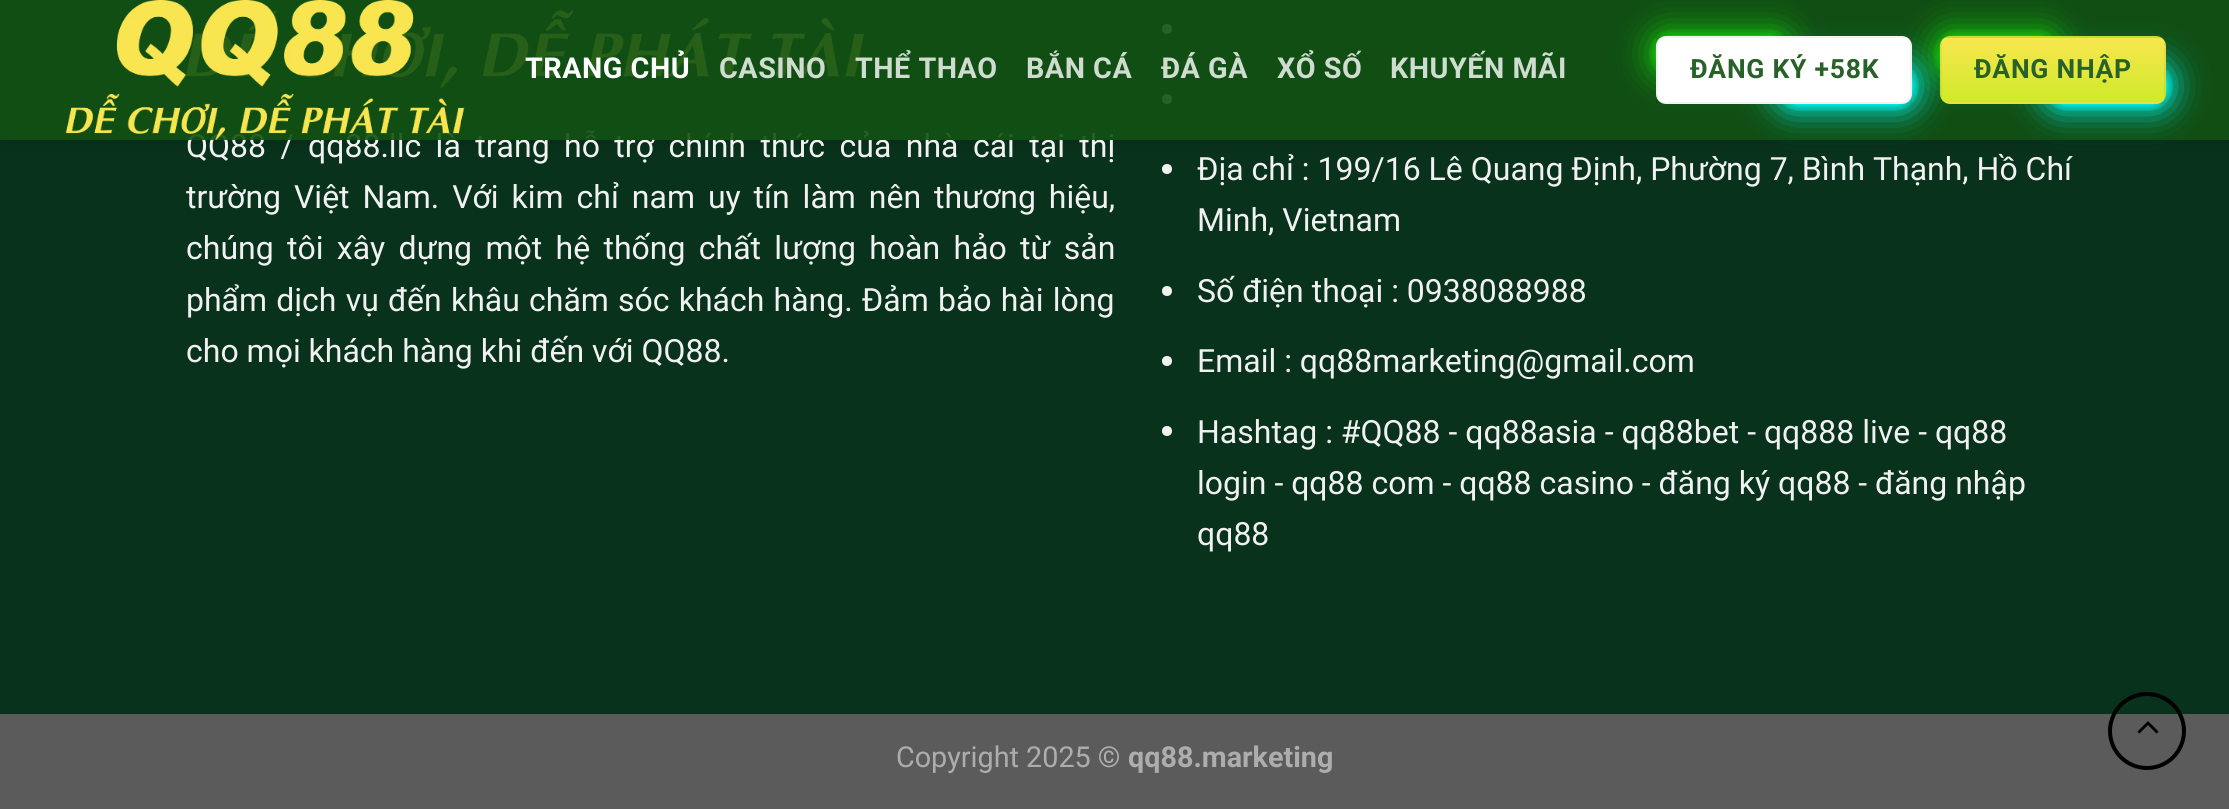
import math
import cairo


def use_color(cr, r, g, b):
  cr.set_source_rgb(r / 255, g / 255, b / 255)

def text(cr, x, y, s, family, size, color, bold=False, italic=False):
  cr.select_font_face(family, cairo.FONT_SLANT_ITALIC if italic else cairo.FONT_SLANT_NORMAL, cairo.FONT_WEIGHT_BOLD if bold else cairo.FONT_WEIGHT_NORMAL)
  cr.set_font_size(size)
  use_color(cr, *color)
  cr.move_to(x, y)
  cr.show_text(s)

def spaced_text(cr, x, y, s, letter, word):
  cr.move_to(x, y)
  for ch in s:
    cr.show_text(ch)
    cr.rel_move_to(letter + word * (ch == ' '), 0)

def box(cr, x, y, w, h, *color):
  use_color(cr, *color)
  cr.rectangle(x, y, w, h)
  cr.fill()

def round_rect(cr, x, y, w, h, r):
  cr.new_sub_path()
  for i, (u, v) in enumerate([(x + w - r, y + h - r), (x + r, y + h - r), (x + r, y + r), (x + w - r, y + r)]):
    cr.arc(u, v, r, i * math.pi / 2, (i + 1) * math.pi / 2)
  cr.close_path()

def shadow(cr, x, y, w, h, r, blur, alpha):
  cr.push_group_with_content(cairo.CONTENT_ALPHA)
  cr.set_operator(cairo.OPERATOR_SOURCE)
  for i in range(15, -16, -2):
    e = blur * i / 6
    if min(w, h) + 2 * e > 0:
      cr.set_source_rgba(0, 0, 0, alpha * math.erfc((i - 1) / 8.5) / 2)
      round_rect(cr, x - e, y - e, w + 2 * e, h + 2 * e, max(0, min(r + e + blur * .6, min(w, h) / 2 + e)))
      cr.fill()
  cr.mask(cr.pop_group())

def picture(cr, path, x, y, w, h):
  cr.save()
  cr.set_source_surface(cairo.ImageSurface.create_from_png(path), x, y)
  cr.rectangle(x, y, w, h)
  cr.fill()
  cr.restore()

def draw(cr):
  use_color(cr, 91, 91, 91)
  cr.paint()
  box(cr, 0, 0, 2229, 714, 8, 50, 28)
  picture(cr, "img_02.png", 186, 10, 678, 78)
  use_color(cr, 241, 241, 241)
  cr.arc(1167, 29, 5, 0, 2 * math.pi)
  cr.fill()
  cr.arc(1167, 99, 5, 0, 2 * math.pi)
  cr.fill()
  cr.arc(1167, 169, 5, 0, 2 * math.pi)
  cr.fill()
  cr.save()
  cr.rectangle(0, 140, 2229, 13)
  cr.clip()
  use_color(cr, 0, 0, 0)
  shadow(cr, 2, 2, 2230, 140, 0, 10, 0.15)
  cr.restore()
  cr.arc(1167, 291, 5, 0, 2 * math.pi)
  cr.fill()
  cr.arc(1167, 361, 5, 0, 2 * math.pi)
  cr.fill()
  cr.arc(1167, 431, 5, 0, 2 * math.pi)
  cr.fill()
  cr.arc(2147, 731, 37, 0, 2 * math.pi)
  use_color(cr, 0, 0, 0)
  cr.set_line_width(4)
  cr.stroke()
  picture(cr, "img_03.png", 2137, 721, 22, 13)
  cr.select_font_face("Roboto")
  cr.set_font_size(32)
  use_color(cr, 241, 241, 241)
  spaced_text(cr, 186, 157, "QQ88 / qq88.llc là trang hỗ trợ chính thức của nhà cái tại thị", 0, 6.5)
  cr.set_source_rgba(0.067, 0.318, 0.071, 0.9)
  cr.rectangle(0, 0, 2229, 140)
  cr.fill()
  use_color(cr, 0, 255, 255)
  shadow(cr, 2046, 64, 124, 44, 20, 17, 1)
  shadow(cr, 2048, 66, 120, 40, 18, 4, 1)
  use_color(cr, 22, 198, 12)
  shadow(cr, 1936, 32, 122, 44, 20, 17, 1)
  use_color(cr, 0, 255, 255)
  shadow(cr, 1778, 64, 138, 44, 20, 17, 1)
  cr.save()
  round_rect(cr, 1940, 36, 226, 68, 10)
  cr.clip()
  gradient = cairo.LinearGradient(2053, 102, 2053, 166)
  gradient.add_color_stop_rgba(0, 0.973, 0.902, 0.31, 1)
  gradient.add_color_stop_rgba(1, 0.812, 0.918, 0.161, 1)
  cr.set_source(gradient)
  cr.rectangle(1940, 102, 226, 2)
  cr.fill()
  cr.restore()
  use_color(cr, 22, 198, 12)
  shadow(cr, 1938, 34, 118, 40, 18, 4, 1)
  cr.save()
  round_rect(cr, 1940, 36, 226, 68, 10)
  cr.clip()
  gradient = cairo.LinearGradient(2053, 38, 2053, 102)
  gradient.add_color_stop_rgba(0, 0.973, 0.902, 0.31, 1)
  gradient.add_color_stop_rgba(1, 0.812, 0.918, 0.161, 1)
  cr.set_source(gradient)
  cr.rectangle(1940, 38, 226, 64)
  cr.fill()
  gradient = cairo.LinearGradient(2053, -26, 2053, 38)
  gradient.add_color_stop_rgba(0, 0.973, 0.902, 0.31, 1)
  gradient.add_color_stop_rgba(1, 0.812, 0.918, 0.161, 1)
  cr.set_source(gradient)
  cr.rectangle(1940, 36, 226, 2)
  cr.fill()
  cr.restore()
  cr.rectangle(1941, 37, 224, 66)
  cr.set_source_rgba(0, 0, 0, 0.05)
  cr.set_line_width(2)
  cr.stroke()
  cr.select_font_face("Roboto", cairo.FONT_SLANT_NORMAL, cairo.FONT_WEIGHT_BOLD)
  cr.set_font_size(26.5)
  use_color(cr, 40, 98, 41)
  spaced_text(cr, 1974, 78, "ĐĂNG NHẬP", 0.75, 0)
  use_color(cr, 0, 255, 255)
  shadow(cr, 1780, 66, 134, 40, 18, 4, 1)
  use_color(cr, 22, 198, 12)
  shadow(cr, 1652, 32, 138, 44, 20, 17, 1)
  shadow(cr, 1654, 34, 134, 40, 18, 4, 1)
  use_color(cr, 255, 255, 255)
  round_rect(cr, 1656, 36, 256, 68, 10)
  cr.fill()
  cr.rectangle(1657, 37, 254, 66)
  cr.set_source_rgba(0, 0, 0, 0.05)
  cr.stroke()
  use_color(cr, 40, 98, 41)
  spaced_text(cr, 1690, 78, "ĐĂNG KÝ +58K", 0.75, 0)
  cr.set_font_size(28.75)
  use_color(cr, 208, 220, 208)
  spaced_text(cr, 1390, 78, "KHUYẾN MÃI", 0.5, 0)
  spaced_text(cr, 1277, 78, "XỔ SỐ", 0.5, 0)
  spaced_text(cr, 1161, 78, "ĐÁ GÀ", 0.5, 0)
  spaced_text(cr, 1026, 78, "BẮN CÁ", 0.5, 0)
  spaced_text(cr, 855, 78, "THỂ THAO", 0.5, 0)
  spaced_text(cr, 719, 78, "CASINO", 0.5, 0)
  use_color(cr, 255, 255, 255)
  spaced_text(cr, 525, 78, "TRANG CHỦ", 0.5, 0)
  picture(cr, "img_01.png", 65, 0, 400, 140)
  cr.select_font_face("Roboto")
  cr.set_font_size(32)
  use_color(cr, 241, 241, 241)
  spaced_text(cr, 186, 208, "trường Việt Nam. Với kim chỉ nam uy tín làm nên thương hiệu,", 0, 5)
  spaced_text(cr, 186, 259, "chúng tôi xây dựng một hệ thống chất lượng hoàn hảo từ sản", 0, 5.4)
  spaced_text(cr, 186, 311, "phẩm dịch vụ đến khâu chăm sóc khách hàng. Đảm bảo hài lòng", 0, 1.25)
  text(cr, 186, 362, "cho mọi khách hàng khi đến với QQ88.", "Roboto", 32, (241, 241, 241))
  text(cr, 1197, 180, "Địa chỉ : 199/16 Lê Quang Định, Phường 7, Bình Thạnh, Hồ Chí", "Roboto", 32, (241, 241, 241))
  text(cr, 1197, 231, "Minh, Vietnam", "Roboto", 32, (241, 241, 241))
  text(cr, 1197, 302, "Số điện thoại : 0938088988", "Roboto", 32, (241, 241, 241))
  text(cr, 1197, 372, "Email : qq88marketing@gmail.com", "Roboto", 32, (241, 241, 241))
  text(cr, 1197, 443, "Hashtag : #QQ88 - qq88asia - qq88bet - qq888 live - qq88", "Roboto", 32, (241, 241, 241))
  text(cr, 1197, 494, "login - qq88 com - qq88 casino - đăng ký qq88 - đăng nhập", "Roboto", 32, (241, 241, 241))
  text(cr, 1197, 545, "qq88", "Roboto", 32, (241, 241, 241))
  text(cr, 896, 767, "Copyright 2025 ©", "Roboto", 28.75, (173, 173, 173))
  text(cr, 1128, 767, "qq88.marketing", "Roboto", 28.75, (173, 173, 173), bold=True)


surface = cairo.ImageSurface(cairo.FORMAT_RGB24, 2229, 809)
cr = cairo.Context(surface)
options = cairo.FontOptions()
options.set_hint_metrics(cairo.HINT_METRICS_OFF)
options.set_hint_style(cairo.HINT_STYLE_NONE)
cr.set_font_options(options)
cr.set_miter_limit(4)
draw(cr)
surface.write_to_png("out.png")
